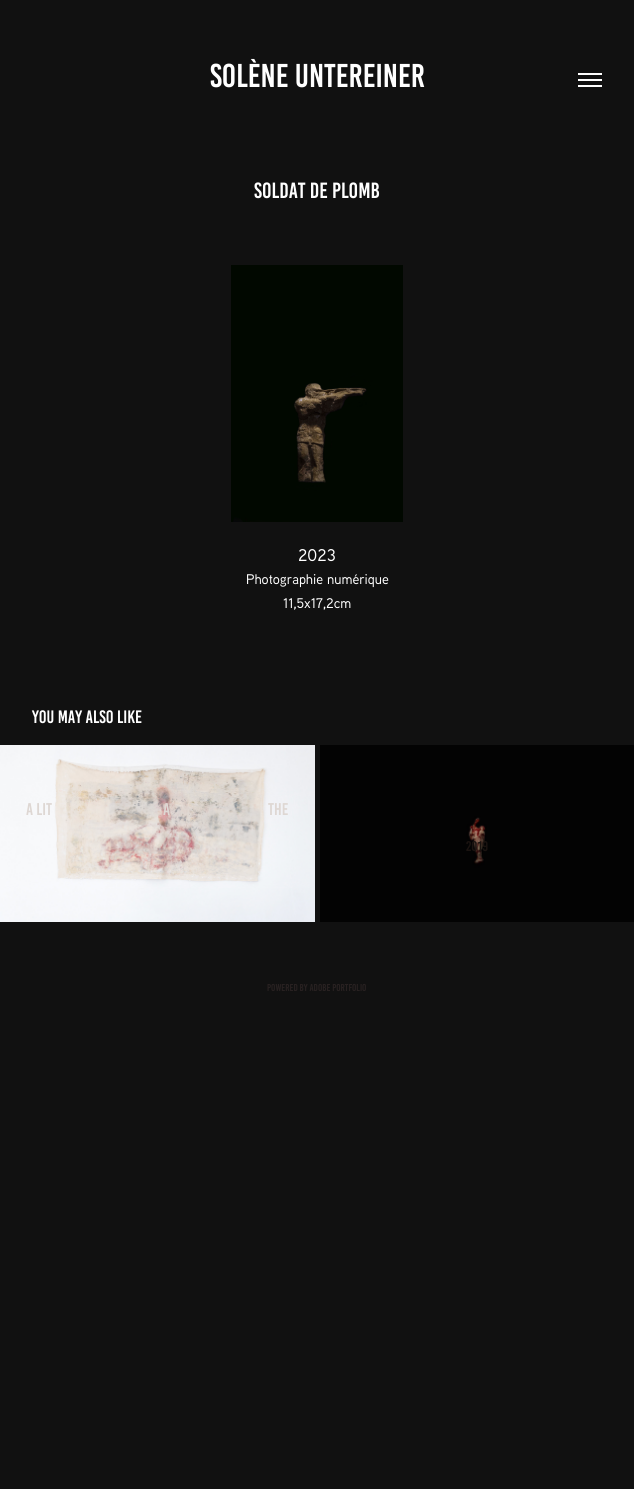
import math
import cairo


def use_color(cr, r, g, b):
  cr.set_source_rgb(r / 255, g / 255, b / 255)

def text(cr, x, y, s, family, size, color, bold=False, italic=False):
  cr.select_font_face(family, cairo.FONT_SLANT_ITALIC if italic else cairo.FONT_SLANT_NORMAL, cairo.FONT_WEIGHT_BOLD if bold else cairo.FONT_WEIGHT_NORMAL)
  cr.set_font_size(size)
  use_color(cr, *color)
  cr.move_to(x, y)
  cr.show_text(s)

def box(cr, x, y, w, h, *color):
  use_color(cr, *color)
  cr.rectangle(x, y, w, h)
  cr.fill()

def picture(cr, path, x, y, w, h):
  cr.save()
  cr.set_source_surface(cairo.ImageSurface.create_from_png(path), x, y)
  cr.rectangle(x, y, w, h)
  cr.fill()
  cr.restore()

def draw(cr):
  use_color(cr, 17, 17, 17)
  cr.paint()
  box(cr, 578, 73, 24, 2, 255, 255, 255)
  box(cr, 578, 79, 24, 2, 255, 255, 255)
  box(cr, 578, 85, 24, 2, 255, 255, 255)
  picture(cr, "img_01.png", 231, 265, 172, 257)
  picture(cr, "img_02.png", 0, 745, 315, 177)
  picture(cr, "img_03.png", 320, 745, 314, 177)
  text(cr, 210, 87, "SOLÈNE UNTEREINER", "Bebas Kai", 33, (255, 255, 255))
  text(cr, 254, 198, "Soldat de plomb", "Bebas Kai", 22, (255, 255, 255))
  text(cr, 298, 561, "2023", "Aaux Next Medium", 17, (255, 255, 255))
  text(cr, 246, 584, "Photographie numérique", "Aaux Next Medium", 14, (255, 255, 255))
  text(cr, 283, 608, "11,5x17,2cm", "Aaux Next Medium", 14, (255, 255, 255))
  text(cr, 32, 723, "You may also like", "Bebas Kai", 18, (255, 255, 255))
  text(cr, 26, 815, "A LIT", "Bebas Kai", 17, (222, 215, 211))
  text(cr, 163, 815, "A", "Bebas Kai", 17, (222, 215, 211))
  text(cr, 268, 815, "THE", "Bebas Kai", 17, (222, 215, 211))
  text(cr, 466, 851, "2019", "Bebas Kai", 14, (26, 19, 16))
  text(cr, 267, 991, "Powered by Adobe Portfolio", "Bebas Kai", 10, (40, 33, 33))


surface = cairo.ImageSurface(cairo.FORMAT_RGB24, 634, 1489)
cr = cairo.Context(surface)
options = cairo.FontOptions()
options.set_hint_metrics(cairo.HINT_METRICS_OFF)
options.set_hint_style(cairo.HINT_STYLE_NONE)
cr.set_font_options(options)
cr.set_miter_limit(4)
draw(cr)
surface.write_to_png("out.png")
